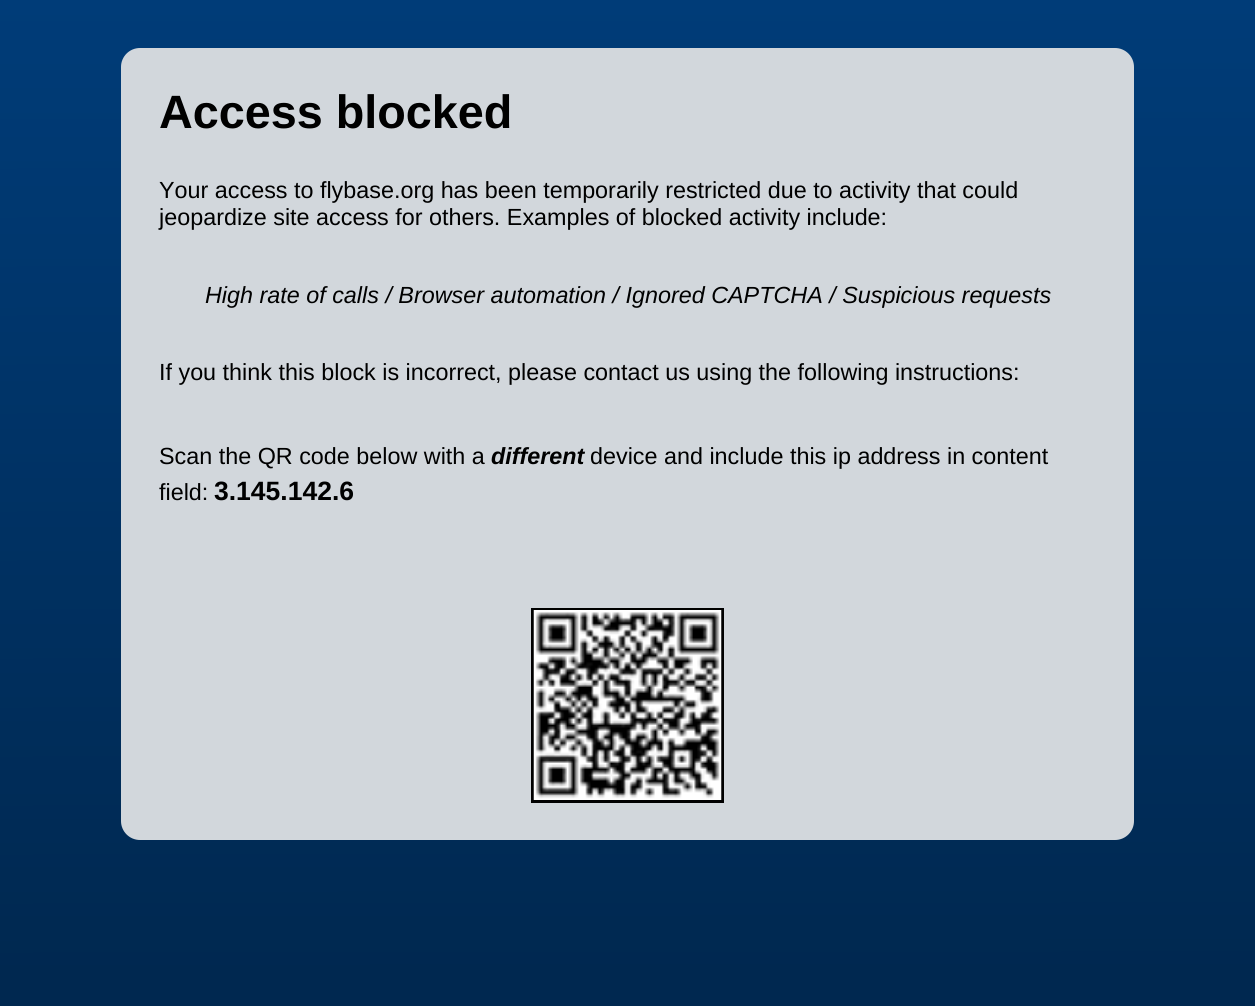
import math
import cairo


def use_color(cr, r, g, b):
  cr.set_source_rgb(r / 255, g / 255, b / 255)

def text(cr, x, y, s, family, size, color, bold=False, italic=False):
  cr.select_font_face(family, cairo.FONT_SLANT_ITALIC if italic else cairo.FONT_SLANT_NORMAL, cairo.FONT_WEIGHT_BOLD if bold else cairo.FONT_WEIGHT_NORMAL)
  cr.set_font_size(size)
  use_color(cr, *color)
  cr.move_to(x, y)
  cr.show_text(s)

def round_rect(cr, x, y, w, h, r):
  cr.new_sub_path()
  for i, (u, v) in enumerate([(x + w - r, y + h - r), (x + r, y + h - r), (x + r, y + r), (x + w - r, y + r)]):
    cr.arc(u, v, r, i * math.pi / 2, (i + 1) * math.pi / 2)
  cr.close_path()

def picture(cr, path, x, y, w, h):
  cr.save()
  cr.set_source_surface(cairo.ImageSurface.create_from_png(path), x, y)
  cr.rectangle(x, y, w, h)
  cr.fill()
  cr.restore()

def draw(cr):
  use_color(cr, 255, 255, 255)
  cr.paint()
  gradient = cairo.LinearGradient(627, 0, 628, 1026)
  gradient.add_color_stop_rgba(0, 0, 0.235, 0.471, 1)
  gradient.add_color_stop_rgba(0.95, 0, 0.157, 0.314, 1)
  cr.set_source(gradient)
  cr.rectangle(0, 0, 1255, 1006)
  cr.fill()
  use_color(cr, 210, 215, 220)
  round_rect(cr, 121, 48, 1013, 792, 19)
  cr.fill()
  cr.rectangle(532.5, 609.5, 190, 192)
  use_color(cr, 0, 0, 0)
  cr.set_line_width(3)
  cr.stroke()
  picture(cr, "img_01.png", 533, 610, 189, 190)
  text(cr, 159, 128, "Access blocked", "Liberation Sans", 46.75, (0, 0, 0), bold=True)
  text(cr, 159, 198, "Your access to flybase.org has been temporarily restricted due to activity that could", "Liberation Sans", 23.35, (0, 0, 0))
  text(cr, 159, 225, "jeopardize site access for others. Examples of blocked activity include:", "Liberation Sans", 23.35, (0, 0, 0))
  text(cr, 205, 303, "High rate of calls / Browser automation / Ignored CAPTCHA / Suspicious requests", "Liberation Sans", 23.35, (0, 0, 0), italic=True)
  text(cr, 159, 380, "If you think this block is incorrect, please contact us using the following instructions:", "Liberation Sans", 23.35, (0, 0, 0))
  text(cr, 159, 464, "Scan the QR code below with a", "Liberation Sans", 23.35, (0, 0, 0))
  text(cr, 491, 464, "different", "Liberation Sans", 23.35, (0, 0, 0), bold=True, italic=True)
  text(cr, 590, 464, "device and include this ip address in content", "Liberation Sans", 23.35, (0, 0, 0))
  text(cr, 159, 500, "field:", "Liberation Sans", 23.35, (0, 0, 0))
  text(cr, 214, 500, "3.145.142.6", "Liberation Sans", 26.5, (0, 0, 0), bold=True)


surface = cairo.ImageSurface(cairo.FORMAT_RGB24, 1255, 1006)
cr = cairo.Context(surface)
options = cairo.FontOptions()
options.set_hint_metrics(cairo.HINT_METRICS_OFF)
options.set_hint_style(cairo.HINT_STYLE_NONE)
cr.set_font_options(options)
cr.set_miter_limit(4)
draw(cr)
surface.write_to_png("out.png")
